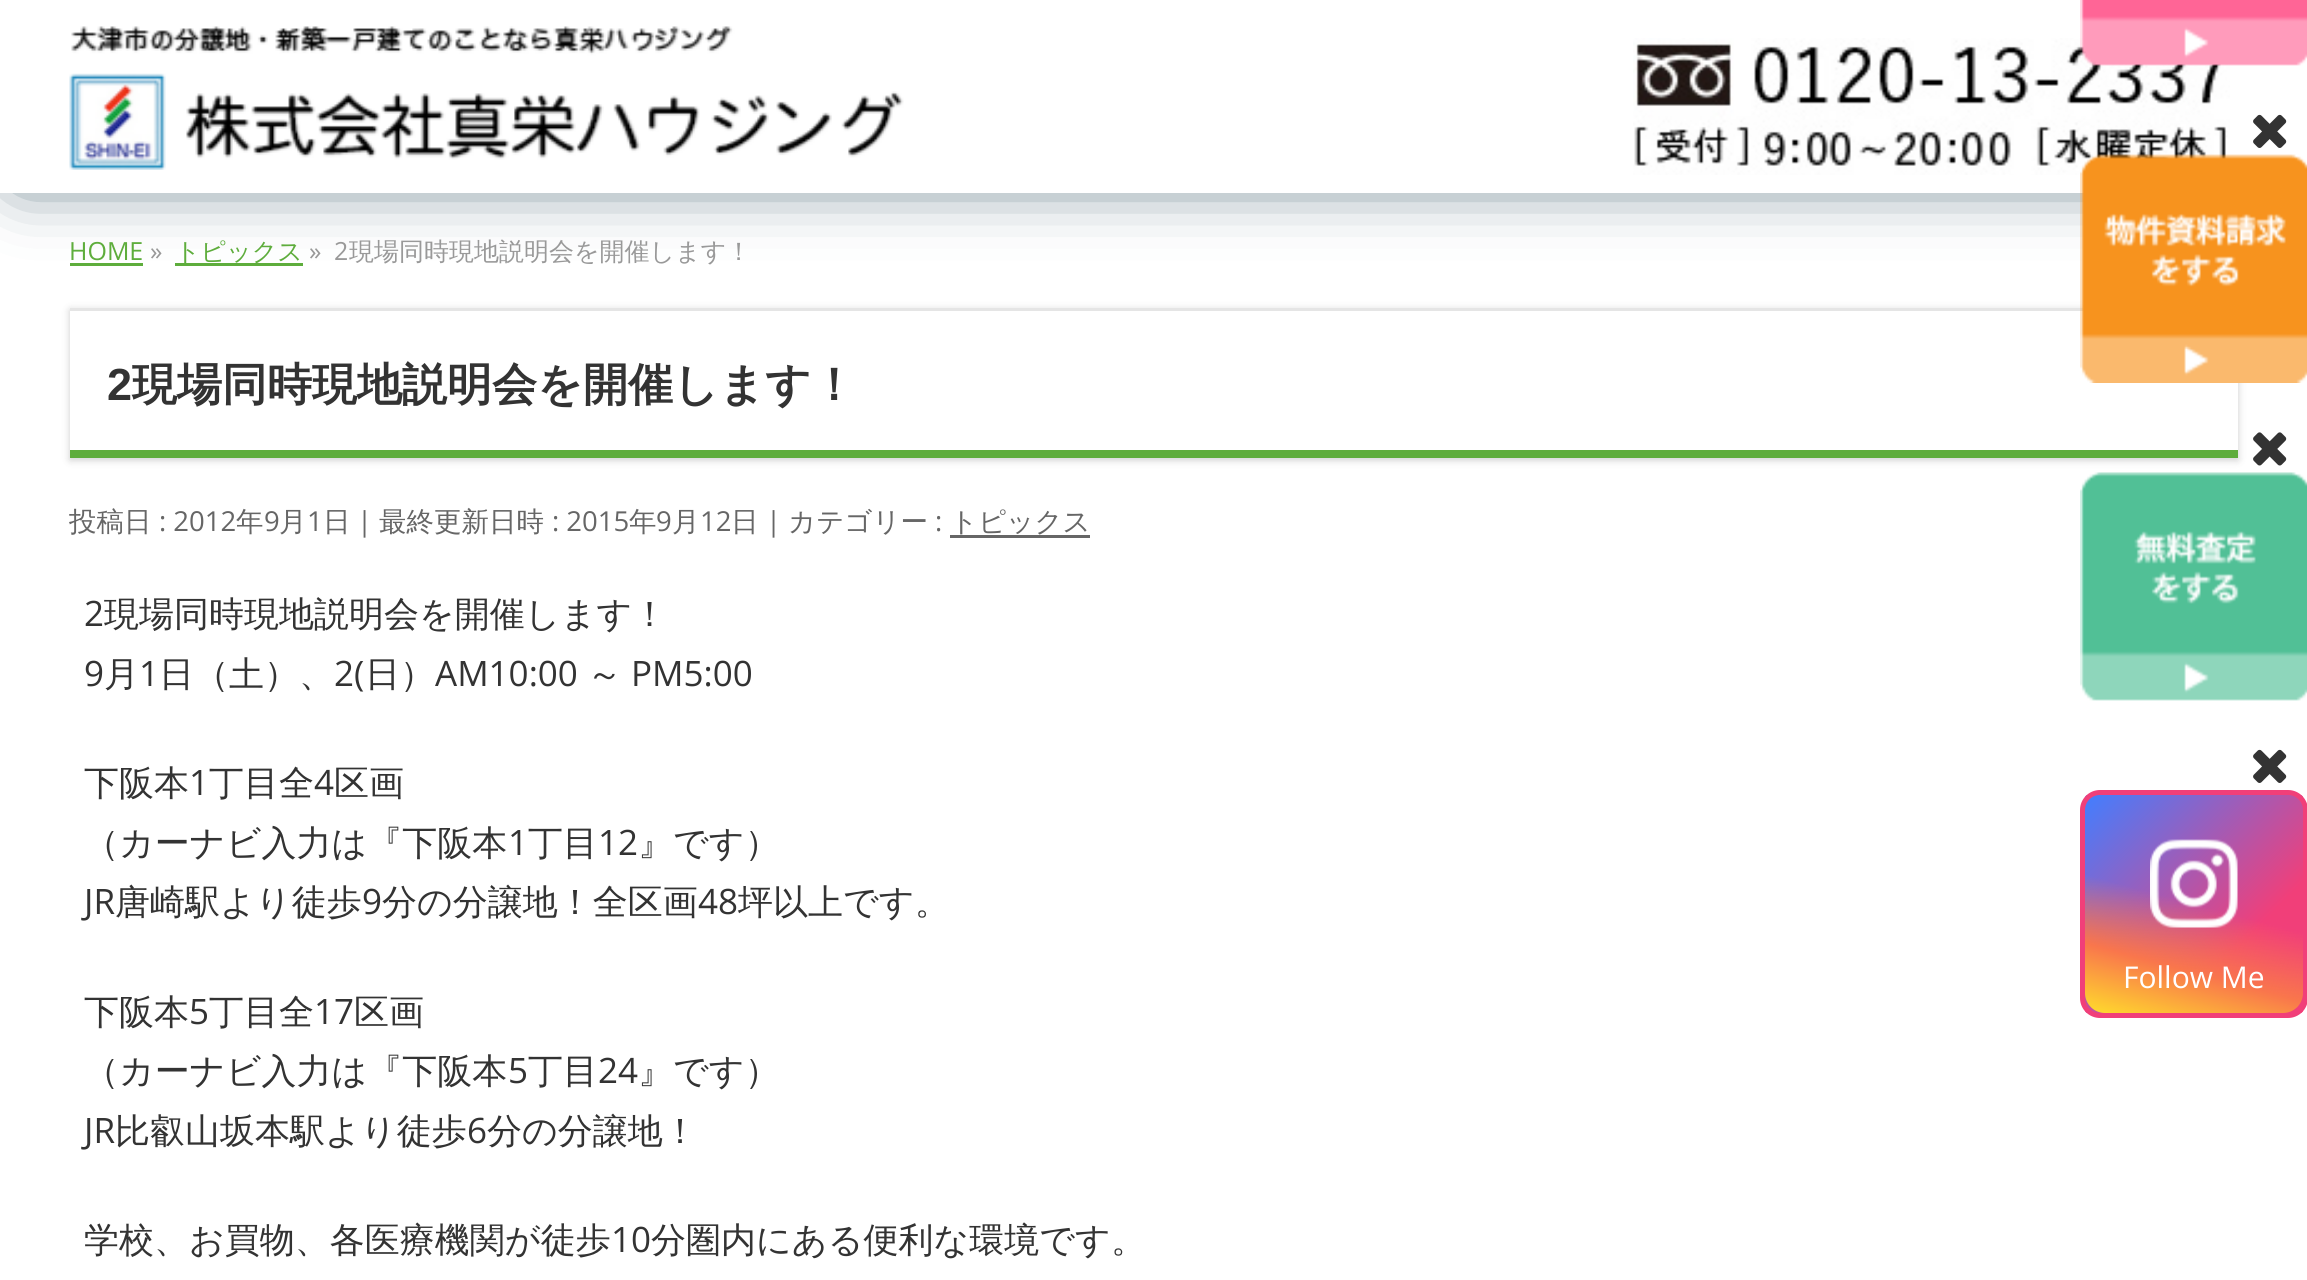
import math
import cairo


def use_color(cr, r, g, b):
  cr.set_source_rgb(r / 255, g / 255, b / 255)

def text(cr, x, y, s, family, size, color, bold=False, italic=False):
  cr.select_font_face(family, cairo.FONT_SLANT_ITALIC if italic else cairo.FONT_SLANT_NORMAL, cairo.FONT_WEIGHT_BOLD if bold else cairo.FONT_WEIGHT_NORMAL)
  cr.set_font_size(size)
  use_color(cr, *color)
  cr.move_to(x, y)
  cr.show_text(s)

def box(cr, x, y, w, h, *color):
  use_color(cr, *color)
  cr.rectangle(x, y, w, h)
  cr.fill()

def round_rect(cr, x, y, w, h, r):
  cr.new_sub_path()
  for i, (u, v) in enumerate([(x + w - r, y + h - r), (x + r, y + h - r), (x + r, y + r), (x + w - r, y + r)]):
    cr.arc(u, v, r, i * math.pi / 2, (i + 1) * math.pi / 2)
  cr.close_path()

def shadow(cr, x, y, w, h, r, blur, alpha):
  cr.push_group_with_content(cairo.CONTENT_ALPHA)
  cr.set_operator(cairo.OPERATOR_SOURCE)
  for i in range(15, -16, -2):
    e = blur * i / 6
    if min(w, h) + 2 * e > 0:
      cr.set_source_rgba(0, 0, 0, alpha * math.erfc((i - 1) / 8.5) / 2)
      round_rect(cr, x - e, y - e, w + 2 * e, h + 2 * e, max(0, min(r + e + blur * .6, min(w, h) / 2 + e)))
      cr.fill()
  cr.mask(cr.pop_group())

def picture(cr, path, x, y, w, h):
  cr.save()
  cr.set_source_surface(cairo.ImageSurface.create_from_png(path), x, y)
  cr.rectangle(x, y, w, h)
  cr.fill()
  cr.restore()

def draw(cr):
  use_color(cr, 255, 255, 255)
  cr.paint()
  box(cr, 70, 263, 73, 3, 94, 173, 60)
  box(cr, 175, 263, 128, 3, 94, 173, 60)
  use_color(cr, 30, 66, 85)
  shadow(cr, 20, 20, 2268, 153, 0, 35, 1)
  box(cr, 0, 0, 2307, 193, 255, 255, 255)
  picture(cr, "img_01.png", 69, 26, 835, 144)
  picture(cr, "img_02.png", 1633, 38, 597, 137)
  cr.save()
  cr.set_fill_rule(cairo.FILL_RULE_EVEN_ODD)
  cr.new_path()
  cr.move_to(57, 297)
  cr.line_to(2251, 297)
  cr.line_to(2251, 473)
  cr.line_to(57, 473)
  cr.close_path()
  cr.move_to(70, 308)
  cr.line_to(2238, 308)
  cr.line_to(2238, 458)
  cr.line_to(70, 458)
  cr.close_path()
  cr.clip()
  use_color(cr, 0, 0, 0)
  shadow(cr, 70, 310, 2168, 150, 0, 4, 0.2)
  cr.restore()
  box(cr, 70, 308, 2014, 3, 229, 229, 229)
  box(cr, 70, 450, 2168, 8, 94, 173, 60)
  box(cr, 950, 535, 140, 3, 102, 102, 102)
  picture(cr, "img_03.png", 2080, 0, 227, 66)
  picture(cr, "img_04.png", 2253, 114, 34, 34)
  picture(cr, "img_05.png", 2080, 154, 227, 229)
  picture(cr, "img_06.png", 2253, 432, 34, 34)
  picture(cr, "img_07.png", 2080, 472, 227, 229)
  picture(cr, "img_04.png", 2253, 749, 34, 34)
  cr.save()
  round_rect(cr, 2080, 790, 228, 228, 20)
  cr.clip()
  gradient = cairo.LinearGradient(2085, 795, 2303, 1013)
  gradient.add_color_stop_rgba(0, 0.259, 0.494, 1, 1)
  gradient.add_color_stop_rgba(0.7, 0.945, 0.247, 0.475, 1)
  cr.set_source(gradient)
  cr.rectangle(2085, 795, 218, 218)
  cr.fill()
  cr.restore()
  round_rect(cr, 2082.5, 792.5, 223, 223, 17.5)
  use_color(cr, 241, 63, 121)
  cr.set_line_width(5)
  cr.stroke()
  gradient = cairo.LinearGradient(2159, 1032, 2228, 775)
  gradient.add_color_stop_rgba(0, 1, 0.859, 0.173, 1)
  gradient.add_color_stop_rgba(0.25, 0.976, 0.463, 0.298, 1)
  gradient.add_color_stop_rgba(0.5, 0.976, 0.463, 0.298, 0)
  cr.set_source(gradient)
  round_rect(cr, 2085, 795, 218, 218, 20)
  cr.fill()
  picture(cr, "img_08.png", 2150, 839, 88, 89)
  text(cr, 69, 260, "HOME", "Open Sans", 25, (94, 173, 60))
  text(cr, 150, 260, "»", "Open Sans", 25, (153, 153, 153))
  text(cr, 175, 260, "トピックス", "WenQuanYi Zen Hei Medium", 25, (94, 173, 60))
  text(cr, 309, 260, "»", "Open Sans", 25, (153, 153, 153))
  text(cr, 334, 260, "2", "Open Sans", 25, (153, 153, 153))
  text(cr, 349, 260, "現場同時現地説明会を開催します！", "WenQuanYi Zen Hei Medium", 25, (153, 153, 153))
  text(cr, 107, 400, "2", "Liberation Sans", 45, (51, 51, 51), bold=True)
  text(cr, 132, 400, "現場同時現地説明会を開催します！", "WenQuanYi Zen Hei", 45, (51, 51, 51), bold=True)
  text(cr, 69, 531, "投稿日", "WenQuanYi Zen Hei Medium", 27.5, (102, 102, 102))
  text(cr, 159, 531, ": 2012", "Open Sans", 27.5, (102, 102, 102))
  text(cr, 236, 531, "年", "WenQuanYi Zen Hei Medium", 27.5, (102, 102, 102))
  text(cr, 264, 531, "9", "Open Sans", 27.5, (102, 102, 102))
  text(cr, 279, 531, "月", "WenQuanYi Zen Hei Medium", 27.5, (102, 102, 102))
  text(cr, 307, 531, "1", "Open Sans", 27.5, (102, 102, 102))
  text(cr, 323, 531, "日", "WenQuanYi Zen Hei Medium", 27.5, (102, 102, 102))
  text(cr, 357, 531, "|", "Open Sans", 27.5, (102, 102, 102))
  text(cr, 379, 531, "最終更新日時", "WenQuanYi Zen Hei Medium", 27.5, (102, 102, 102))
  text(cr, 552, 531, ": 2015", "Open Sans", 27.5, (102, 102, 102))
  text(cr, 629, 531, "年", "WenQuanYi Zen Hei Medium", 27.5, (102, 102, 102))
  text(cr, 656, 531, "9", "Open Sans", 27.5, (102, 102, 102))
  text(cr, 672, 531, "月", "WenQuanYi Zen Hei Medium", 27.5, (102, 102, 102))
  text(cr, 700, 531, "12", "Open Sans", 27.5, (102, 102, 102))
  text(cr, 731, 531, "日", "WenQuanYi Zen Hei Medium", 27.5, (102, 102, 102))
  text(cr, 766, 531, "|", "Open Sans", 27.5, (102, 102, 102))
  text(cr, 788, 531, "カテゴリー", "WenQuanYi Zen Hei Medium", 27.5, (102, 102, 102))
  text(cr, 935, 531, ":", "Open Sans", 27.5, (102, 102, 102))
  text(cr, 950, 531, "トピックス", "WenQuanYi Zen Hei Medium", 27.5, (102, 102, 102))
  text(cr, 84, 626, "2", "Open Sans", 35, (51, 51, 51))
  text(cr, 104, 626, "現場同時現地説明会を開催します！", "WenQuanYi Zen Hei Medium", 35, (51, 51, 51))
  text(cr, 84, 686, "9", "Open Sans", 35, (51, 51, 51))
  text(cr, 104, 686, "月", "WenQuanYi Zen Hei Medium", 35, (51, 51, 51))
  text(cr, 139, 686, "1", "Open Sans", 35, (51, 51, 51))
  text(cr, 159, 686, "日（土）、", "WenQuanYi Zen Hei Medium", 35, (51, 51, 51))
  text(cr, 334, 686, "2(", "Open Sans", 35, (51, 51, 51))
  text(cr, 365, 686, "日）", "WenQuanYi Zen Hei Medium", 35, (51, 51, 51))
  text(cr, 435, 686, "AM10:00", "Open Sans", 35, (51, 51, 51))
  text(cr, 587, 686, "～", "WenQuanYi Zen Hei Medium", 35, (51, 51, 51))
  text(cr, 631, 686, "PM5:00", "Open Sans", 35, (51, 51, 51))
  text(cr, 84, 795, "下阪本", "WenQuanYi Zen Hei Medium", 35, (51, 51, 51))
  text(cr, 189, 795, "1", "Open Sans", 35, (51, 51, 51))
  text(cr, 209, 795, "丁目全", "WenQuanYi Zen Hei Medium", 35, (51, 51, 51))
  text(cr, 314, 795, "4", "Open Sans", 35, (51, 51, 51))
  text(cr, 334, 795, "区画", "WenQuanYi Zen Hei Medium", 35, (51, 51, 51))
  text(cr, 84, 855, "（カーナビ入力は『下阪本", "WenQuanYi Zen Hei Medium", 35, (51, 51, 51))
  text(cr, 508, 855, "1", "Open Sans", 35, (51, 51, 51))
  text(cr, 528, 855, "丁目", "WenQuanYi Zen Hei Medium", 35, (51, 51, 51))
  text(cr, 598, 855, "12", "Open Sans", 35, (51, 51, 51))
  text(cr, 638, 855, "』です）", "WenQuanYi Zen Hei Medium", 35, (51, 51, 51))
  text(cr, 84, 914, "JR", "Open Sans", 35, (51, 51, 51))
  text(cr, 115, 914, "唐崎駅より徒歩", "WenQuanYi Zen Hei Medium", 35, (51, 51, 51))
  text(cr, 362, 914, "9", "Open Sans", 35, (51, 51, 51))
  text(cr, 382, 914, "分の分譲地！全区画", "WenQuanYi Zen Hei Medium", 35, (51, 51, 51))
  text(cr, 698, 914, "48", "Open Sans", 35, (51, 51, 51))
  text(cr, 738, 914, "坪以上です。", "WenQuanYi Zen Hei Medium", 35, (51, 51, 51))
  text(cr, 84, 1024, "下阪本", "WenQuanYi Zen Hei Medium", 35, (51, 51, 51))
  text(cr, 189, 1024, "5", "Open Sans", 35, (51, 51, 51))
  text(cr, 209, 1024, "丁目全", "WenQuanYi Zen Hei Medium", 35, (51, 51, 51))
  text(cr, 314, 1024, "17", "Open Sans", 35, (51, 51, 51))
  text(cr, 354, 1024, "区画", "WenQuanYi Zen Hei Medium", 35, (51, 51, 51))
  text(cr, 84, 1083, "（カーナビ入力は『下阪本", "WenQuanYi Zen Hei Medium", 35, (51, 51, 51))
  text(cr, 508, 1083, "5", "Open Sans", 35, (51, 51, 51))
  text(cr, 528, 1083, "丁目", "WenQuanYi Zen Hei Medium", 35, (51, 51, 51))
  text(cr, 598, 1083, "24", "Open Sans", 35, (51, 51, 51))
  text(cr, 638, 1083, "』です）", "WenQuanYi Zen Hei Medium", 35, (51, 51, 51))
  text(cr, 84, 1143, "JR", "Open Sans", 35, (51, 51, 51))
  text(cr, 115, 1143, "比叡山坂本駅より徒歩", "WenQuanYi Zen Hei Medium", 35, (51, 51, 51))
  text(cr, 467, 1143, "6", "Open Sans", 35, (51, 51, 51))
  text(cr, 487, 1143, "分の分譲地！", "WenQuanYi Zen Hei Medium", 35, (51, 51, 51))
  text(cr, 84, 1252, "学校、お買物、各医療機関が徒歩", "WenQuanYi Zen Hei Medium", 35, (51, 51, 51))
  text(cr, 611, 1252, "10", "Open Sans", 35, (51, 51, 51))
  text(cr, 651, 1252, "分圏内にある便利な環境です。", "WenQuanYi Zen Hei Medium", 35, (51, 51, 51))
  text(cr, 2123, 988, "Follow Me", "Open Sans", 30, (255, 255, 255))


surface = cairo.ImageSurface(cairo.FORMAT_RGB24, 2307, 1280)
cr = cairo.Context(surface)
options = cairo.FontOptions()
options.set_hint_metrics(cairo.HINT_METRICS_OFF)
options.set_hint_style(cairo.HINT_STYLE_NONE)
cr.set_font_options(options)
cr.set_miter_limit(4)
draw(cr)
surface.write_to_png("out.png")
